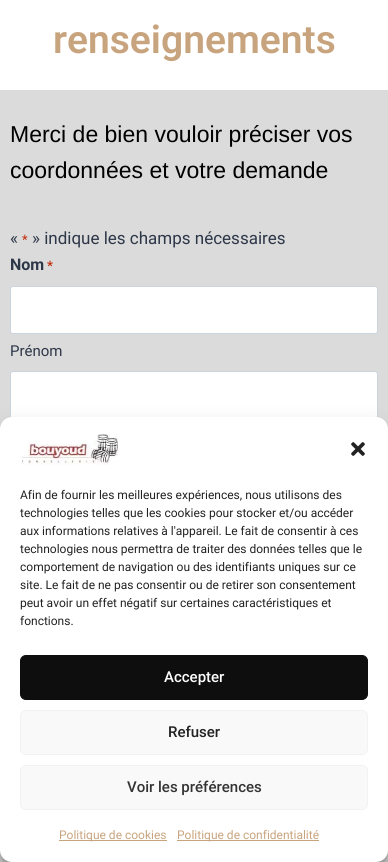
import math
import cairo


def use_color(cr, r, g, b):
  cr.set_source_rgb(r / 255, g / 255, b / 255)

def text(cr, x, y, s, family, size, color, bold=False, italic=False):
  cr.select_font_face(family, cairo.FONT_SLANT_ITALIC if italic else cairo.FONT_SLANT_NORMAL, cairo.FONT_WEIGHT_BOLD if bold else cairo.FONT_WEIGHT_NORMAL)
  cr.set_font_size(size)
  use_color(cr, *color)
  cr.move_to(x, y)
  cr.show_text(s)

def box(cr, x, y, w, h, *color):
  use_color(cr, *color)
  cr.rectangle(x, y, w, h)
  cr.fill()

def round_rect(cr, x, y, w, h, r):
  cr.new_sub_path()
  for i, (u, v) in enumerate([(x + w - r, y + h - r), (x + r, y + h - r), (x + r, y + r), (x + w - r, y + r)]):
    cr.arc(u, v, r, i * math.pi / 2, (i + 1) * math.pi / 2)
  cr.close_path()

def shadow(cr, x, y, w, h, r, blur, alpha):
  cr.push_group_with_content(cairo.CONTENT_ALPHA)
  cr.set_operator(cairo.OPERATOR_SOURCE)
  for i in range(15, -16, -2):
    e = blur * i / 6
    if min(w, h) + 2 * e > 0:
      cr.set_source_rgba(0, 0, 0, alpha * math.erfc((i - 1) / 8.5) / 2)
      round_rect(cr, x - e, y - e, w + 2 * e, h + 2 * e, max(0, min(r + e + blur * .6, min(w, h) / 2 + e)))
      cr.fill()
  cr.mask(cr.pop_group())

def picture(cr, path, x, y, w, h):
  cr.save()
  cr.set_source_surface(cairo.ImageSurface.create_from_png(path), x, y)
  cr.rectangle(x, y, w, h)
  cr.fill()
  cr.restore()

def draw(cr):
  use_color(cr, 255, 255, 255)
  cr.paint()
  box(cr, 0, 90, 388, 772, 219, 219, 219)
  use_color(cr, 255, 255, 255)
  round_rect(cr, 10.5, 286.5, 367, 47, 2.5)
  cr.fill_preserve()
  use_color(cr, 203, 213, 224)
  cr.set_line_width(1)
  cr.stroke()
  use_color(cr, 255, 255, 255)
  round_rect(cr, 10.5, 371.5, 367, 47, 2.5)
  cr.fill_preserve()
  use_color(cr, 203, 213, 224)
  cr.stroke()
  cr.rectangle(10.5, 605.5, 367, 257)
  cr.stroke()
  use_color(cr, 0, 0, 0)
  shadow(cr, 0, 423, 388, 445, 12, 3, 0.23)
  shadow(cr, 0, 427, 388, 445, 12, 10, 0.19)
  use_color(cr, 255, 255, 255)
  round_rect(cr, 0, 417, 388, 445, 12)
  cr.fill()
  picture(cr, "img_01.png", 21, 434, 97, 31)
  picture(cr, "img_02.png", 351, 442, 14, 14)
  use_color(cr, 13, 14, 13)
  round_rect(cr, 20.5, 655.5, 347, 44, 5.5)
  cr.fill_preserve()
  cr.stroke()
  use_color(cr, 249, 249, 249)
  round_rect(cr, 20.5, 710.5, 347, 44, 5.5)
  cr.fill_preserve()
  use_color(cr, 242, 242, 242)
  cr.stroke()
  use_color(cr, 249, 249, 249)
  round_rect(cr, 20.5, 765.5, 347, 44, 5.5)
  cr.fill_preserve()
  use_color(cr, 242, 242, 242)
  cr.stroke()
  box(cr, 59, 840, 108, 1, 200, 164, 126)
  box(cr, 177, 840, 142, 1, 200, 164, 126)
  text(cr, 53, 53, "renseignements", "Roboto SemiBold", 39, (200, 164, 126))
  text(cr, 10, 142, "Merci de bien vouloir préciser vos", "Liberation Sans", 23, (0, 0, 0))
  text(cr, 10, 178, "coordonnées et votre demande", "Liberation Sans", 23, (0, 0, 0))
  text(cr, 10, 244, "«", "Roboto", 17, (45, 55, 72))
  text(cr, 22, 244, "*", "Roboto", 13, (192, 43, 10))
  text(cr, 32, 244, "» indique les champs nécessaires", "Roboto", 17, (45, 55, 72))
  text(cr, 10, 270, "Nom", "Roboto", 16, (45, 55, 72), bold=True)
  text(cr, 47, 270, "*", "Roboto", 13, (192, 43, 10), bold=True)
  text(cr, 10, 356, "Prénom", "Roboto", 15, (45, 55, 72))
  text(cr, 20, 499, "Afin de fournir les meilleures expériences, nous utilisons des", "Roboto", 12, (34, 34, 34))
  text(cr, 20, 517, "technologies telles que les cookies pour stocker et/ou accéder", "Roboto", 12, (34, 34, 34))
  text(cr, 20, 535, "aux informations relatives à l'appareil. Le fait de consentir à ces", "Roboto", 12, (34, 34, 34))
  text(cr, 20, 553, "technologies nous permettra de traiter des données telles que le", "Roboto", 12, (34, 34, 34))
  text(cr, 20, 571, "comportement de navigation ou des identifiants uniques sur ce", "Roboto", 12, (34, 34, 34))
  text(cr, 20, 589, "site. Le fait de ne pas consentir ou de retirer son consentement", "Roboto", 12, (34, 34, 34))
  text(cr, 20, 607, "peut avoir un effet négatif sur certaines caractéristiques et", "Roboto", 12, (34, 34, 34))
  text(cr, 20, 625, "fonctions.", "Roboto", 12, (34, 34, 34))
  text(cr, 164, 682, "Accepter", "Roboto Medium", 15, (255, 255, 255))
  text(cr, 168, 737, "Refuser", "Roboto Medium", 15, (34, 34, 34))
  text(cr, 127, 792, "Voir les préférences", "Roboto Medium", 15, (51, 51, 51))
  text(cr, 59, 839, "Politique de cookies", "Roboto", 12, (200, 164, 126))
  text(cr, 177, 839, "Politique de confidentialité", "Roboto", 12, (200, 164, 126))


surface = cairo.ImageSurface(cairo.FORMAT_RGB24, 388, 862)
cr = cairo.Context(surface)
options = cairo.FontOptions()
options.set_hint_metrics(cairo.HINT_METRICS_OFF)
options.set_hint_style(cairo.HINT_STYLE_NONE)
cr.set_font_options(options)
cr.set_miter_limit(4)
draw(cr)
surface.write_to_png("out.png")
